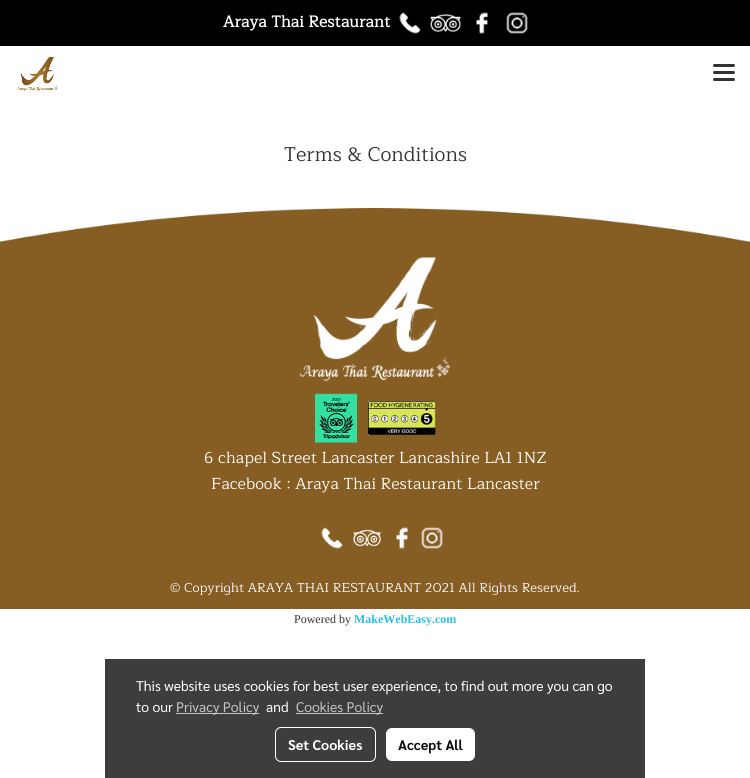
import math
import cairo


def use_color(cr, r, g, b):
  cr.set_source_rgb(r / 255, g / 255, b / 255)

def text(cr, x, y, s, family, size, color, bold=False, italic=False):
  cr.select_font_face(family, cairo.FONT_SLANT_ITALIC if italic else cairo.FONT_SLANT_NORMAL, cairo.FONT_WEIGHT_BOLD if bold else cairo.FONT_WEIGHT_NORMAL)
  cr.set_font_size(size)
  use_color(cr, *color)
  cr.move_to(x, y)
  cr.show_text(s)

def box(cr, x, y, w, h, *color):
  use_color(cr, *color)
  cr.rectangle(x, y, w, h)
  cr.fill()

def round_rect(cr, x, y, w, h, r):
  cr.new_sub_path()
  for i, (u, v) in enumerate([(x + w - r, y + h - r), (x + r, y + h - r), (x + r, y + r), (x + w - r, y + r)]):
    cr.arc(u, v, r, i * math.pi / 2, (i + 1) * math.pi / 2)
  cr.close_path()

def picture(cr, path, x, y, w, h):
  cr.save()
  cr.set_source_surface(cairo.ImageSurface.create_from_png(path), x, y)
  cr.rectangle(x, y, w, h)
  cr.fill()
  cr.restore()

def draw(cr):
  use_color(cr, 255, 255, 255)
  cr.paint()
  box(cr, 0, 0, 750, 46, 0, 0, 0)
  picture(cr, "img_01.png", 399, 12, 22, 22)
  picture(cr, "img_02.png", 430, 14, 31, 18)
  picture(cr, "img_03.png", 476, 12, 12, 22)
  picture(cr, "img_04.png", 506, 12, 22, 22)
  picture(cr, "img_05.png", 16, 56, 42, 36)
  use_color(cr, 51, 51, 51)
  round_rect(cr, 713, 71, 22, 3, 1.5)
  cr.fill()
  round_rect(cr, 713, 64, 22, 3, 1.5)
  cr.fill()
  round_rect(cr, 713, 78, 22, 3, 1.5)
  cr.fill()
  picture(cr, "img_06.png", 0, 208, 750, 401)
  picture(cr, "img_07.png", 300, 257, 150, 124)
  picture(cr, "img_08.png", 315, 393, 121, 50)
  picture(cr, "img_09.png", 321, 527, 22, 22)
  picture(cr, "img_10.png", 353, 529, 28, 18)
  picture(cr, "img_11.png", 396, 527, 12, 22)
  picture(cr, "img_12.png", 421, 527, 22, 22)
  box(cr, 105, 659, 540, 119, 61, 61, 61)
  box(cr, 176, 713, 83, 1, 197, 197, 197)
  box(cr, 296, 713, 87, 1, 197, 197, 197)
  round_rect(cr, 275.5, 727.5, 100, 34, 5.5)
  use_color(cr, 255, 255, 255)
  cr.set_line_width(1)
  cr.stroke()
  round_rect(cr, 386, 728, 89, 33, 6)
  cr.fill()
  text(cr, 223, 27, "Araya Thai Restaurant", "Maitree", 16, (255, 255, 255), bold=True)
  text(cr, 284, 161, "Terms & Conditions", "Maitree", 20, (51, 51, 51))
  text(cr, 204, 463, "6 chapel Street Lancaster Lancashire LA1 1NZ", "Maitree", 16, (255, 255, 255))
  text(cr, 211, 489, "Facebook : Araya Thai Restaurant Lancaster", "Maitree", 16, (255, 255, 255))
  text(cr, 170, 592, "© Copyright ARAYA THAI RESTAURANT 2021 All Rights Reserved.", "Maitree", 13, (255, 255, 255))
  text(cr, 294, 623, "Powered by", "Liberation Serif", 12, (51, 51, 51))
  text(cr, 354, 623, "MakeWebEasy.com", "Liberation Serif", 12, (40, 190, 227), bold=True)
  text(cr, 136, 691, "This website uses cookies for best user experience, to find out more you can go", "Sarabun", 14, (255, 255, 255))
  text(cr, 136, 712, "to our", "Sarabun", 14, (255, 255, 255))
  text(cr, 176, 712, "Privacy Policy", "Sarabun", 14, (197, 197, 197))
  text(cr, 266, 712, "and", "Sarabun", 14, (255, 255, 255))
  text(cr, 296, 712, "Cookies Policy", "Sarabun", 14, (197, 197, 197))
  text(cr, 288, 750, "Set Cookies", "Sarabun", 14, (255, 255, 255), bold=True)
  text(cr, 398, 750, "Accept All", "Sarabun", 14, (13, 13, 13), bold=True)


surface = cairo.ImageSurface(cairo.FORMAT_RGB24, 750, 778)
cr = cairo.Context(surface)
options = cairo.FontOptions()
options.set_hint_metrics(cairo.HINT_METRICS_OFF)
options.set_hint_style(cairo.HINT_STYLE_NONE)
cr.set_font_options(options)
cr.set_miter_limit(4)
draw(cr)
surface.write_to_png("out.png")
